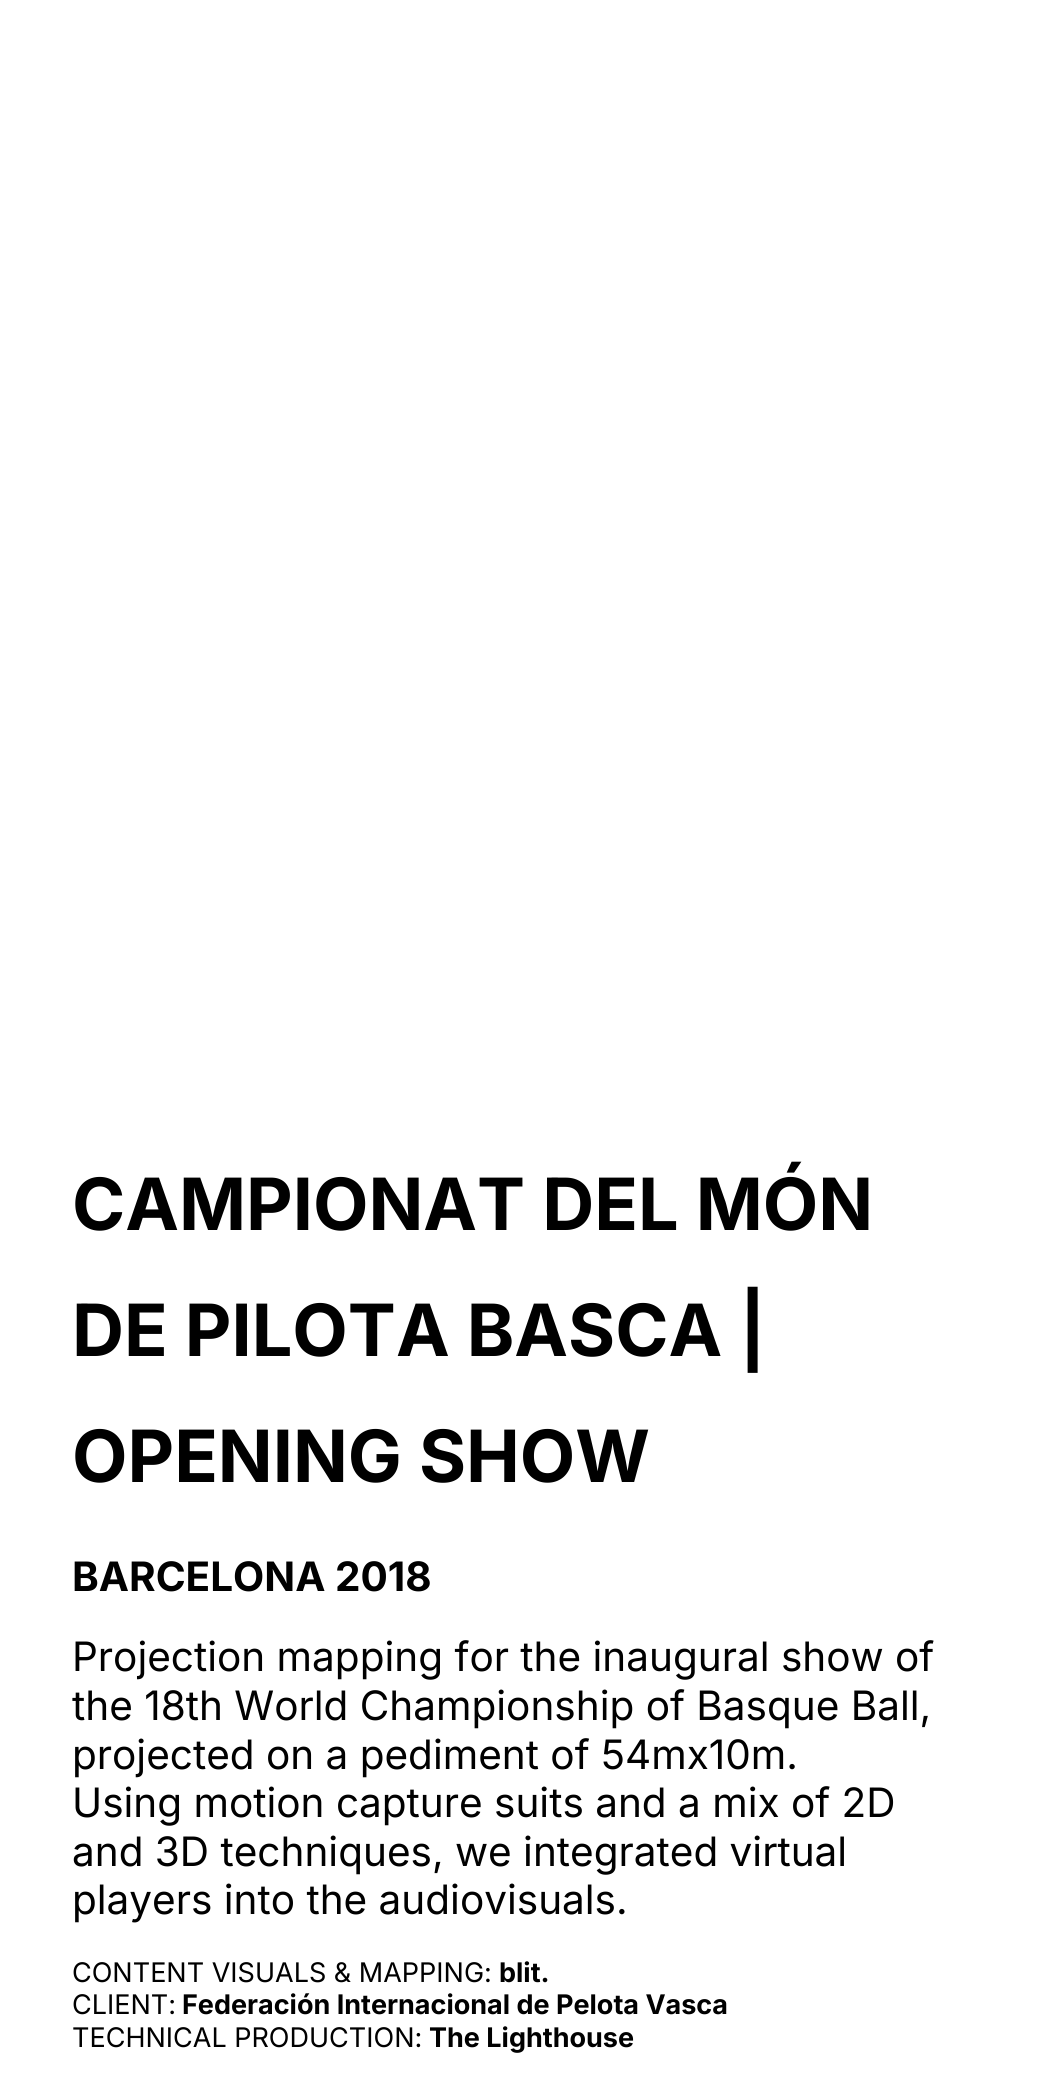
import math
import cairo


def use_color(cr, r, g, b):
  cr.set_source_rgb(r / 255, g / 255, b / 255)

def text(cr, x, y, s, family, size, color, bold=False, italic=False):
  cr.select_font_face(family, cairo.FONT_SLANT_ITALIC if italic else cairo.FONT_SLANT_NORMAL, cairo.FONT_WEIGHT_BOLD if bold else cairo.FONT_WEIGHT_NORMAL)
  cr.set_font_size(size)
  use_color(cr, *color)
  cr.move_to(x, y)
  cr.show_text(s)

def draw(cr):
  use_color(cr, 255, 255, 255)
  cr.paint()
  text(cr, 72, 1230, "CAMPIONAT DEL MÓN", "Inter", 72, (0, 0, 0), bold=True)
  text(cr, 72, 1356, "DE PILOTA BASCA |", "Inter", 72, (0, 0, 0), bold=True)
  text(cr, 72, 1482, "OPENING SHOW", "Inter", 72, (0, 0, 0), bold=True)
  text(cr, 72, 1591, "BARCELONA 2018", "Inter", 40.5, (0, 0, 0), bold=True)
  text(cr, 72, 1671, "Projection mapping for the inaugural show of", "Inter", 40.5, (0, 0, 0))
  text(cr, 72, 1720, "the 18th World Championship of Basque Ball,", "Inter", 40.5, (0, 0, 0))
  text(cr, 72, 1769, "projected on a pediment of 54mx10m.", "Inter", 40.5, (0, 0, 0))
  text(cr, 72, 1817, "Using motion capture suits and a mix of 2D", "Inter", 40.5, (0, 0, 0))
  text(cr, 72, 1866, "and 3D techniques, we integrated virtual", "Inter", 40.5, (0, 0, 0))
  text(cr, 72, 1914, "players into the audiovisuals.", "Inter", 40.5, (0, 0, 0))
  text(cr, 72, 1982, "CONTENT VISUALS & MAPPING:", "Inter", 27, (0, 0, 0))
  text(cr, 499, 1982, "blit.", "Inter", 27, (0, 0, 0), bold=True)
  text(cr, 72, 2014, "CLIENT:", "Inter", 27, (0, 0, 0))
  text(cr, 182, 2014, "Federación Internacional de Pelota Vasca", "Inter", 27, (0, 0, 0), bold=True)
  text(cr, 72, 2047, "TECHNICAL PRODUCTION:", "Inter", 27, (0, 0, 0))
  text(cr, 429, 2047, "The Lighthouse", "Inter", 27, (0, 0, 0), bold=True)


surface = cairo.ImageSurface(cairo.FORMAT_RGB24, 1038, 2086)
cr = cairo.Context(surface)
options = cairo.FontOptions()
options.set_hint_metrics(cairo.HINT_METRICS_OFF)
options.set_hint_style(cairo.HINT_STYLE_NONE)
cr.set_font_options(options)
cr.set_miter_limit(4)
draw(cr)
surface.write_to_png("out.png")
